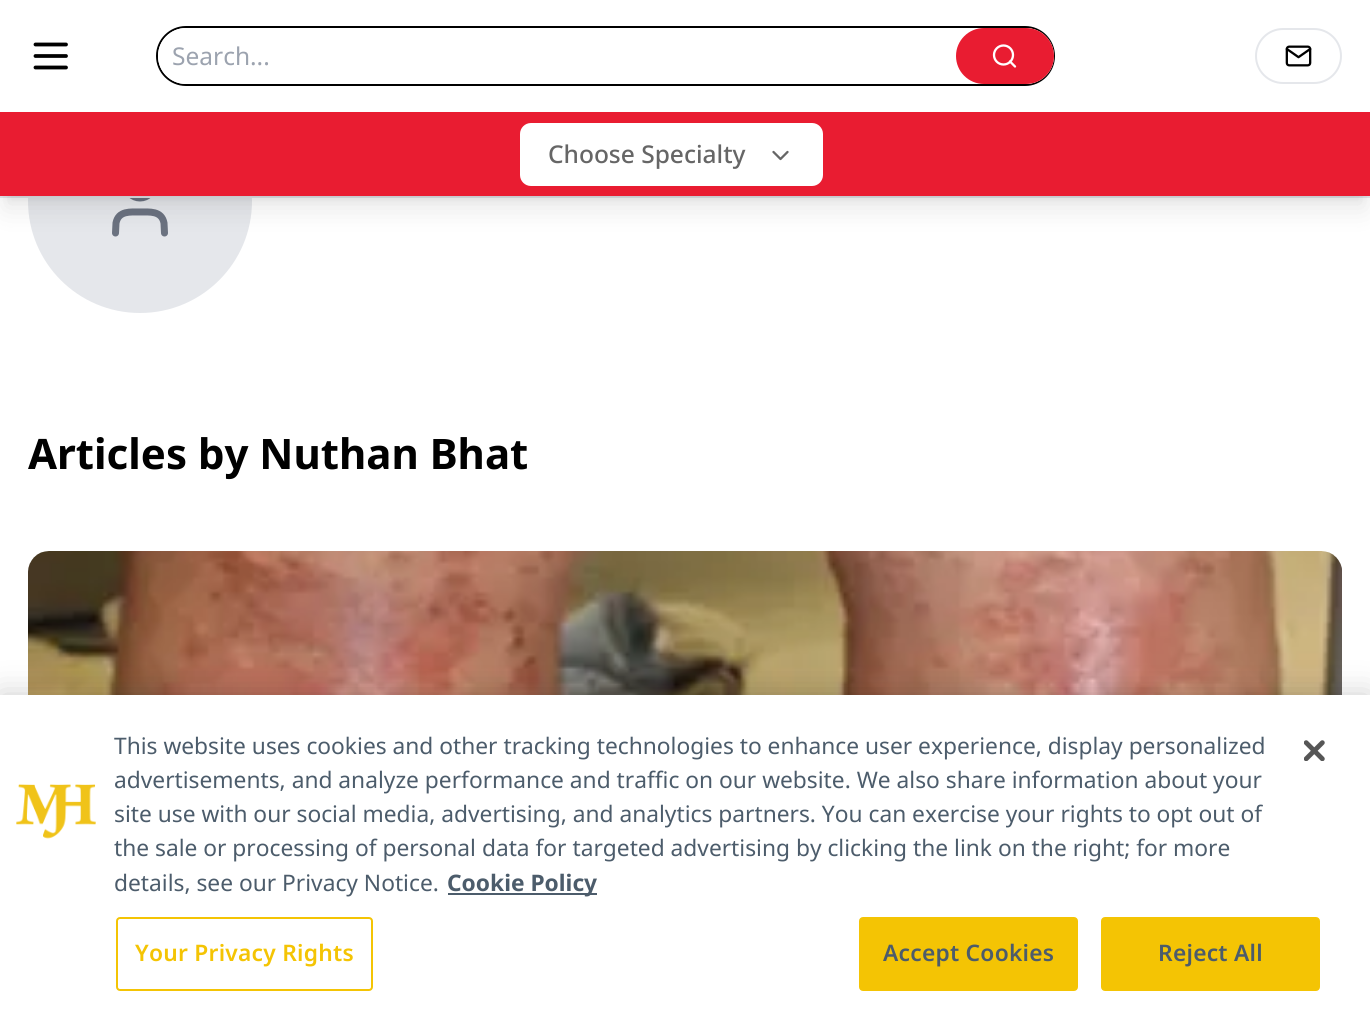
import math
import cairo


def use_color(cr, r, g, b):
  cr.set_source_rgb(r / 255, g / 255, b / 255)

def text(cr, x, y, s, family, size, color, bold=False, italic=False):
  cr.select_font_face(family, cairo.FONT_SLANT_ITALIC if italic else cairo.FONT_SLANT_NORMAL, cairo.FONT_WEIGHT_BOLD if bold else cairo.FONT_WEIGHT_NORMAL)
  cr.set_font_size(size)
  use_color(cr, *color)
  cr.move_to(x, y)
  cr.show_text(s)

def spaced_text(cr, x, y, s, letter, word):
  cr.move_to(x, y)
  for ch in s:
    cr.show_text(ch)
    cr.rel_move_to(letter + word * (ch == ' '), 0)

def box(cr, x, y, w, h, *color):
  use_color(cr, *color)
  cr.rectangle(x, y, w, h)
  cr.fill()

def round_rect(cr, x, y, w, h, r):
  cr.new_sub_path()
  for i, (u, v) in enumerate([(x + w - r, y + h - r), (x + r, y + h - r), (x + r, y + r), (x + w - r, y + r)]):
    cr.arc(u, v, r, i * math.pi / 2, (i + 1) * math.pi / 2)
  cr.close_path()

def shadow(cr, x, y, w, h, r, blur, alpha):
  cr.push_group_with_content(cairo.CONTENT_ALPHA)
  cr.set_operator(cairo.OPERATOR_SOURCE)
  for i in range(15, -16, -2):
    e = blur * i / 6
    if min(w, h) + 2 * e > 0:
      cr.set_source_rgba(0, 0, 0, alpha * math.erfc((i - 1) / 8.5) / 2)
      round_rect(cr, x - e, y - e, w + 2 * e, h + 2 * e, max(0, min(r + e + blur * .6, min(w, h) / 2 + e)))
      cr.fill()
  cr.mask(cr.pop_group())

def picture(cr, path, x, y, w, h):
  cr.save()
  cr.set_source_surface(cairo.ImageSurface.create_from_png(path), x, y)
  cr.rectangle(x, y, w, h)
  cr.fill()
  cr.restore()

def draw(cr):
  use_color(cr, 255, 255, 255)
  cr.paint()
  use_color(cr, 229, 231, 235)
  cr.arc(140, 201, 112, 0, 2 * math.pi)
  cr.fill()
  box(cr, 72, 89, 136, 23, 255, 255, 255)
  cr.arc(140, 184, 14, 0, 2 * math.pi)
  use_color(cr, 107, 114, 128)
  cr.set_line_width(7)
  cr.stroke()
  box(cr, 0, 196, 1370, 2, 229, 231, 235)
  cr.new_path()
  cr.move_to(35.5, 44.5)
  cr.line_to(66, 44.5)
  cr.move_to(35.5, 56)
  cr.line_to(66, 56)
  cr.move_to(35.5, 67.5)
  cr.line_to(66, 67.5)
  use_color(cr, 0, 0, 0)
  cr.set_line_width(3.8)
  cr.set_line_cap(cairo.LINE_CAP_ROUND)
  cr.set_line_join(cairo.LINE_JOIN_ROUND)
  cr.stroke()
  round_rect(cr, 157, 27, 897, 58, 29)
  cr.set_line_width(2)
  cr.set_line_cap(cairo.LINE_CAP_BUTT)
  cr.set_line_join(cairo.LINE_JOIN_MITER)
  cr.stroke()
  use_color(cr, 255, 255, 255)
  round_rect(cr, 158, 28, 896, 56, 28)
  cr.fill()
  use_color(cr, 233, 28, 49)
  round_rect(cr, 956, 28, 98, 56, 28)
  cr.fill()
  cr.arc(1003.5, 55, 9.5, 0, 2 * math.pi)
  use_color(cr, 255, 255, 255)
  cr.set_line_width(2.3)
  cr.stroke()
  cr.new_path()
  cr.move_to(1015, 66.5)
  cr.line_to(1010, 61.5)
  cr.set_line_cap(cairo.LINE_CAP_ROUND)
  cr.set_line_join(cairo.LINE_JOIN_ROUND)
  cr.stroke()
  round_rect(cr, 1256, 29, 85, 54, 27)
  use_color(cr, 229, 231, 235)
  cr.set_line_width(2)
  cr.set_line_cap(cairo.LINE_CAP_BUTT)
  cr.set_line_join(cairo.LINE_JOIN_MITER)
  cr.stroke()
  picture(cr, "img_01.png", 1285, 45, 27, 22)
  cr.new_path()
  cr.move_to(164.5, 233)
  cr.line_to(164, 223)
  cr.curve_to(161.5, 210.5, 149.5, 212, 140, 212)
  cr.curve_to(130.5, 212, 118.5, 210.5, 116, 223)
  cr.line_to(115.5, 233)
  use_color(cr, 107, 114, 128)
  cr.set_line_width(7)
  cr.set_line_cap(cairo.LINE_CAP_ROUND)
  cr.set_line_join(cairo.LINE_JOIN_ROUND)
  cr.stroke()
  use_color(cr, 0, 0, 0)
  shadow(cr, 7, 126, 1356, 70, 0, 5, 0.1)
  shadow(cr, 5, 135, 1360, 73, 0, 13, 0.1)
  box(cr, 0, 112, 1370, 84, 233, 28, 49)
  use_color(cr, 255, 255, 255)
  round_rect(cr, 520, 123, 303, 63, 11)
  cr.fill()
  cr.new_path()
  cr.move_to(773.5, 152)
  cr.line_to(780.5, 159)
  cr.line_to(787.5, 152)
  use_color(cr, 102, 102, 102)
  cr.set_line_width(2.3)
  cr.stroke()
  picture(cr, "img_02.png", 28, 551, 1314, 144)
  use_color(cr, 0, 0, 0)
  shadow(cr, 0, 695, 1370, 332, 0, 16, 0.2)
  box(cr, 0, 695, 1370, 331, 255, 255, 255)
  picture(cr, "img_03.png", 16, 784, 80, 55)
  box(cr, 448, 893, 149, 2, 76, 92, 107)
  round_rect(cr, 117, 918, 255, 72, 3)
  use_color(cr, 244, 196, 4)
  cr.set_line_width(2)
  cr.set_line_cap(cairo.LINE_CAP_BUTT)
  cr.set_line_join(cairo.LINE_JOIN_MITER)
  cr.stroke()
  round_rect(cr, 860, 918, 217, 72, 3)
  cr.fill_preserve()
  cr.stroke()
  round_rect(cr, 1102, 918, 217, 72, 3)
  cr.fill_preserve()
  cr.stroke()
  picture(cr, "img_04.png", 1304, 740, 21, 21)
  text(cr, 172, 65, "Search...", "Noto Sans", 24.5, (156, 163, 175))
  text(cr, 548, 163, "Choose Specialty", "Noto Sans Medium", 24.5, (102, 102, 102))
  text(cr, 28, 469, "Articles by Nuthan Bhat", "Noto Sans", 42, (0, 0, 0), bold=True)
  text(cr, 114, 754, "This website uses cookies and other tracking technologies to enhance user experience, display personalized", "Noto Sans", 22.75, (76, 92, 107))
  text(cr, 114, 788, "advertisements, and analyze performance and traffic on our website. We also share information about your", "Noto Sans", 22.75, (76, 92, 107))
  text(cr, 114, 822, "site use with our social media, advertising, and analytics partners. You can exercise your rights to opt out of", "Noto Sans", 22.75, (76, 92, 107))
  text(cr, 114, 856, "the sale or processing of personal data for targeted advertising by clicking the link on the right; for more", "Noto Sans", 22.75, (76, 92, 107))
  text(cr, 114, 891, "details, see our Privacy Notice.", "Noto Sans", 22.75, (76, 92, 107))
  text(cr, 447, 891, "Cookie Policy", "Noto Sans", 22.75, (76, 92, 107), bold=True)
  cr.select_font_face("Noto Sans SemiBold")
  use_color(cr, 244, 196, 4)
  spaced_text(cr, 135, 961, "Your Privacy Rights", 0.25, 0)
  use_color(cr, 76, 92, 107)
  spaced_text(cr, 883, 961, "Accept Cookies", 0.25, 0)
  spaced_text(cr, 1158, 961, "Reject All", 0.25, 0)


surface = cairo.ImageSurface(cairo.FORMAT_RGB24, 1370, 1026)
cr = cairo.Context(surface)
options = cairo.FontOptions()
options.set_hint_metrics(cairo.HINT_METRICS_OFF)
options.set_hint_style(cairo.HINT_STYLE_NONE)
cr.set_font_options(options)
cr.set_miter_limit(4)
draw(cr)
surface.write_to_png("out.png")
